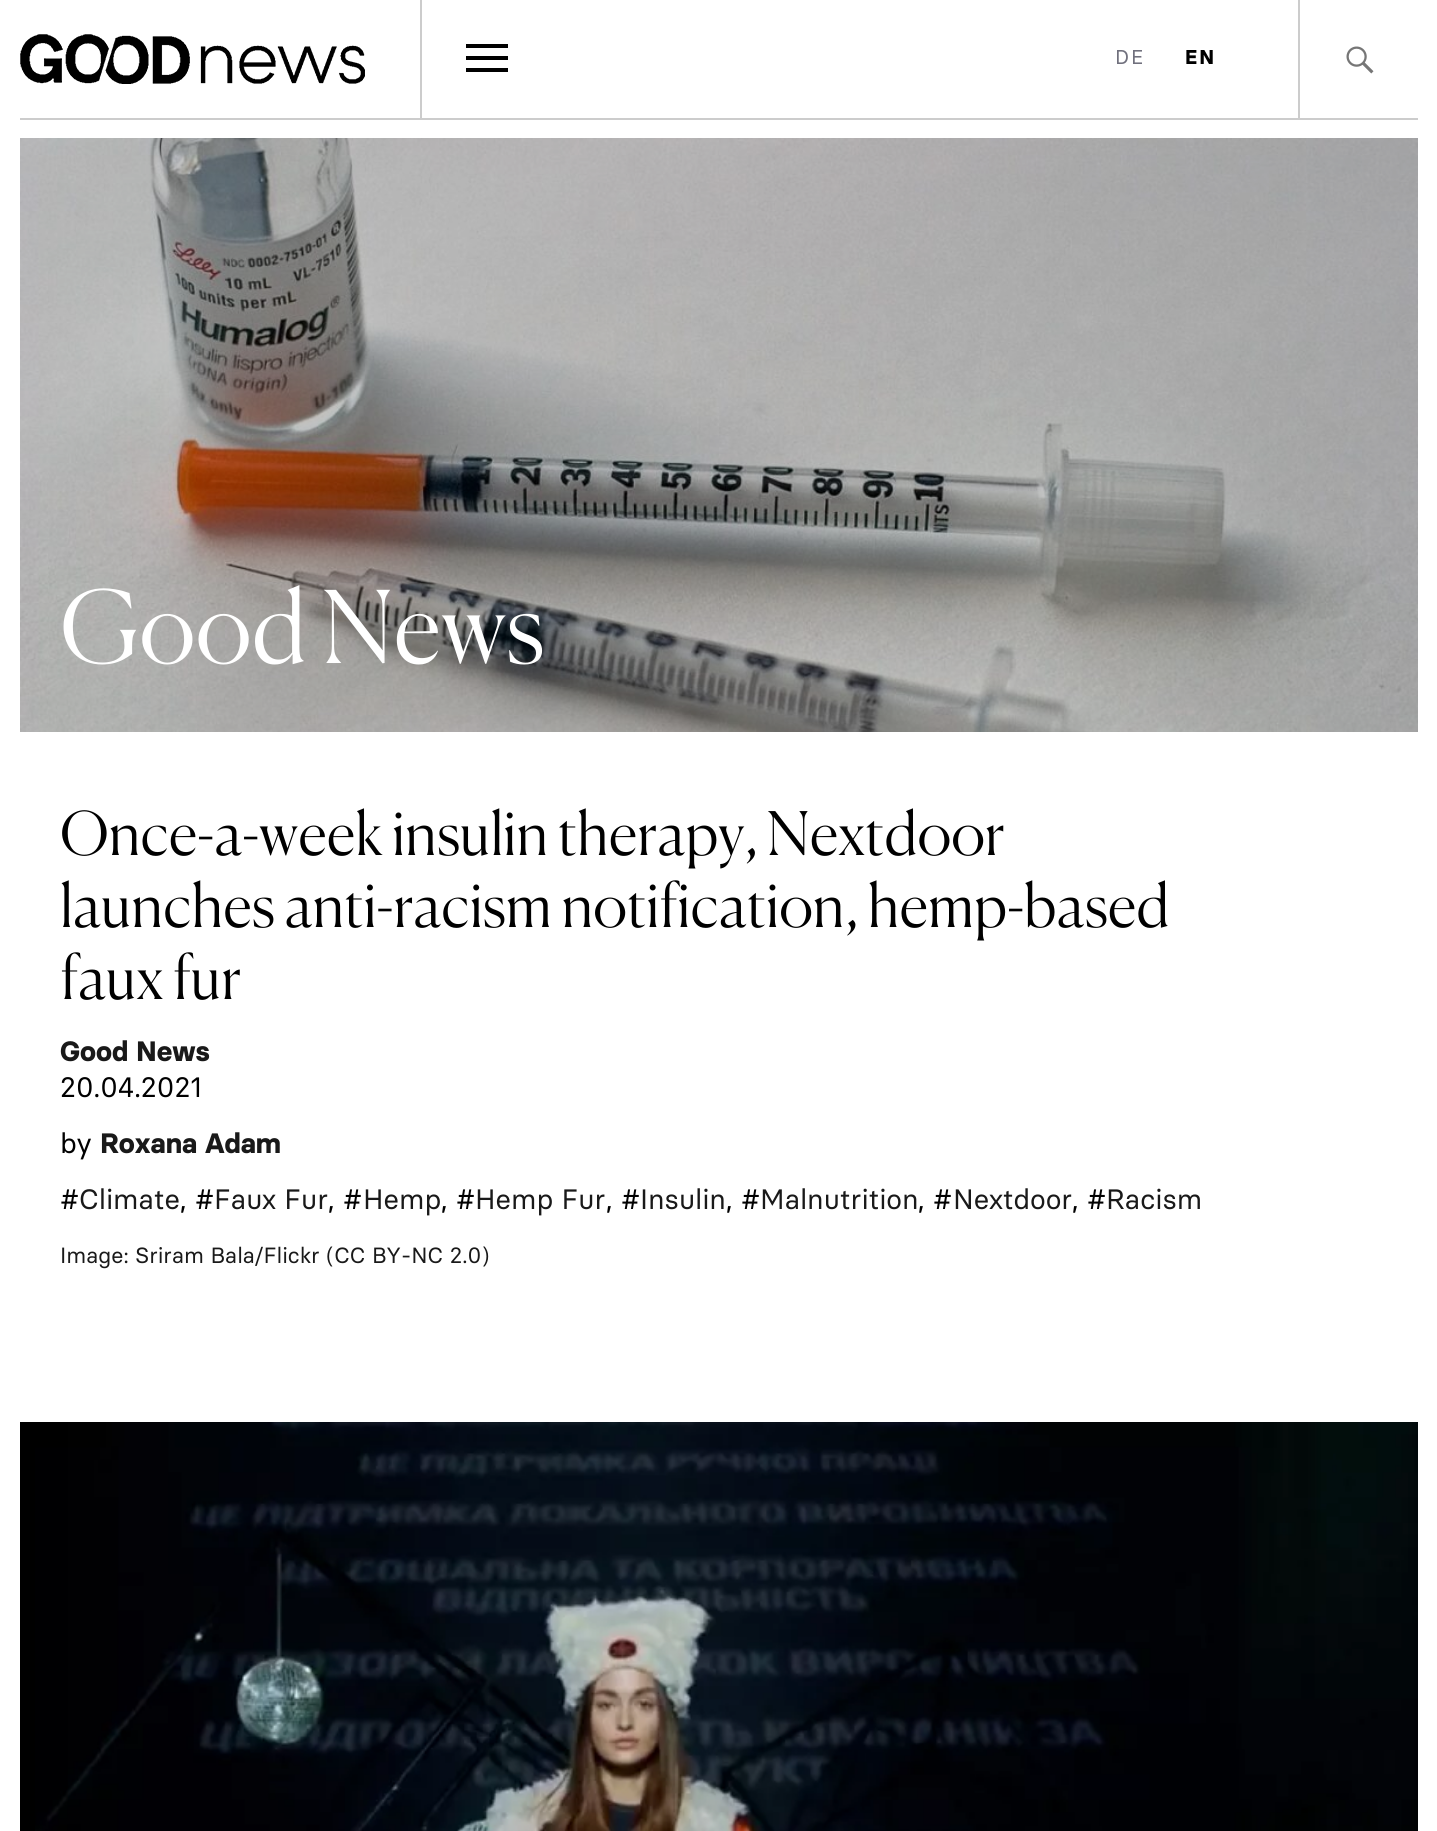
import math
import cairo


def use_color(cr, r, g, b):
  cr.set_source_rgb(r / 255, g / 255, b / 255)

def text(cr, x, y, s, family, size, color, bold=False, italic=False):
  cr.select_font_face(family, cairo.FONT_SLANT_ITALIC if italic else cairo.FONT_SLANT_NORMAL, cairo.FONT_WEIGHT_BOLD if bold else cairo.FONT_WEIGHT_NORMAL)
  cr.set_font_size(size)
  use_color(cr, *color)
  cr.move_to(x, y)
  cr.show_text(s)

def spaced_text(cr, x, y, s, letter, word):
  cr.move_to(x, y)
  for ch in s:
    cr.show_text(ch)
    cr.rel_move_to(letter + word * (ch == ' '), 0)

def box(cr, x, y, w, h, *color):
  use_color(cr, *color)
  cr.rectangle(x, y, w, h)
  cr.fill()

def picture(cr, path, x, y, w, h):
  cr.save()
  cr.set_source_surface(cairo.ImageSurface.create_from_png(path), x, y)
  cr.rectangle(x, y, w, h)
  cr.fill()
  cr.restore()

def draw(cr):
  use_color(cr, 255, 255, 255)
  cr.paint()
  picture(cr, "img_01.png", 20, 34, 345, 50)
  box(cr, 20, 118, 1398, 2, 204, 204, 204)
  box(cr, 420, 0, 2, 120, 204, 204, 204)
  box(cr, 466, 56, 42, 4, 0, 0, 0)
  box(cr, 466, 44, 42, 4, 0, 0, 0)
  box(cr, 466, 68, 42, 4, 0, 0, 0)
  box(cr, 1298, 0, 2, 120, 204, 204, 204)
  picture(cr, "img_02.png", 1346, 46, 28, 28)
  picture(cr, "img_03.png", 20, 138, 1398, 594)
  box(cr, 20, 1422, 15, 409, 0, 0, 0)
  picture(cr, "img_04.png", 35, 1422, 1383, 409)
  cr.select_font_face("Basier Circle")
  cr.set_font_size(20)
  use_color(cr, 112, 112, 125)
  spaced_text(cr, 1115, 64, "DE", 2, 0)
  cr.select_font_face("Basier Circle", cairo.FONT_SLANT_NORMAL, cairo.FONT_WEIGHT_BOLD)
  use_color(cr, 0, 0, 0)
  spaced_text(cr, 1185, 64, "EN", 2, 0)
  text(cr, 60, 663, "Good News", "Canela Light", 100, (255, 255, 255))
  text(cr, 60, 855, "Once-a-week insulin therapy, Nextdoor", "Canela Light", 60, (0, 0, 0))
  text(cr, 60, 927, "launches anti-racism notification, hemp-based", "Canela Light", 60, (0, 0, 0))
  text(cr, 60, 999, "faux fur", "Canela Light", 60, (0, 0, 0))
  text(cr, 60, 1061, "Good News", "Basier Circle", 28, (25, 25, 25), bold=True)
  text(cr, 60, 1097, "20.04.2021", "Basier Circle", 28, (0, 0, 0))
  text(cr, 60, 1153, "by", "Basier Circle", 28, (0, 0, 0))
  text(cr, 100, 1153, "Roxana Adam", "Basier Circle", 28, (25, 25, 25), bold=True)
  text(cr, 60, 1209, "#", "Basier Circle", 28, (0, 0, 0))
  text(cr, 79, 1209, "Climate", "Basier Circle", 28, (25, 25, 25))
  text(cr, 180, 1209, ", #", "Basier Circle", 28, (0, 0, 0))
  text(cr, 214, 1209, "Faux Fur", "Basier Circle", 28, (25, 25, 25))
  text(cr, 328, 1209, ", #", "Basier Circle", 28, (0, 0, 0))
  text(cr, 363, 1209, "Hemp", "Basier Circle", 28, (25, 25, 25))
  text(cr, 441, 1209, ", #", "Basier Circle", 28, (0, 0, 0))
  text(cr, 475, 1209, "Hemp Fur", "Basier Circle", 28, (25, 25, 25))
  text(cr, 606, 1209, ", #", "Basier Circle", 28, (0, 0, 0))
  text(cr, 640, 1209, "Insulin", "Basier Circle", 28, (25, 25, 25))
  text(cr, 726, 1209, ", #", "Basier Circle", 28, (0, 0, 0))
  text(cr, 760, 1209, "Malnutrition", "Basier Circle", 28, (25, 25, 25))
  text(cr, 918, 1209, ", #", "Basier Circle", 28, (0, 0, 0))
  text(cr, 953, 1209, "Nextdoor", "Basier Circle", 28, (25, 25, 25))
  text(cr, 1072, 1209, ", #", "Basier Circle", 28, (0, 0, 0))
  text(cr, 1106, 1209, "Racism", "Basier Circle", 28, (25, 25, 25))
  text(cr, 60, 1263, "Image: Sriram Bala/Flickr (CC BY-NC 2.0)", "Basier Circle", 22, (25, 25, 25))


surface = cairo.ImageSurface(cairo.FORMAT_RGB24, 1437, 1831)
cr = cairo.Context(surface)
options = cairo.FontOptions()
options.set_hint_metrics(cairo.HINT_METRICS_OFF)
options.set_hint_style(cairo.HINT_STYLE_NONE)
cr.set_font_options(options)
cr.set_miter_limit(4)
draw(cr)
surface.write_to_png("out.png")
